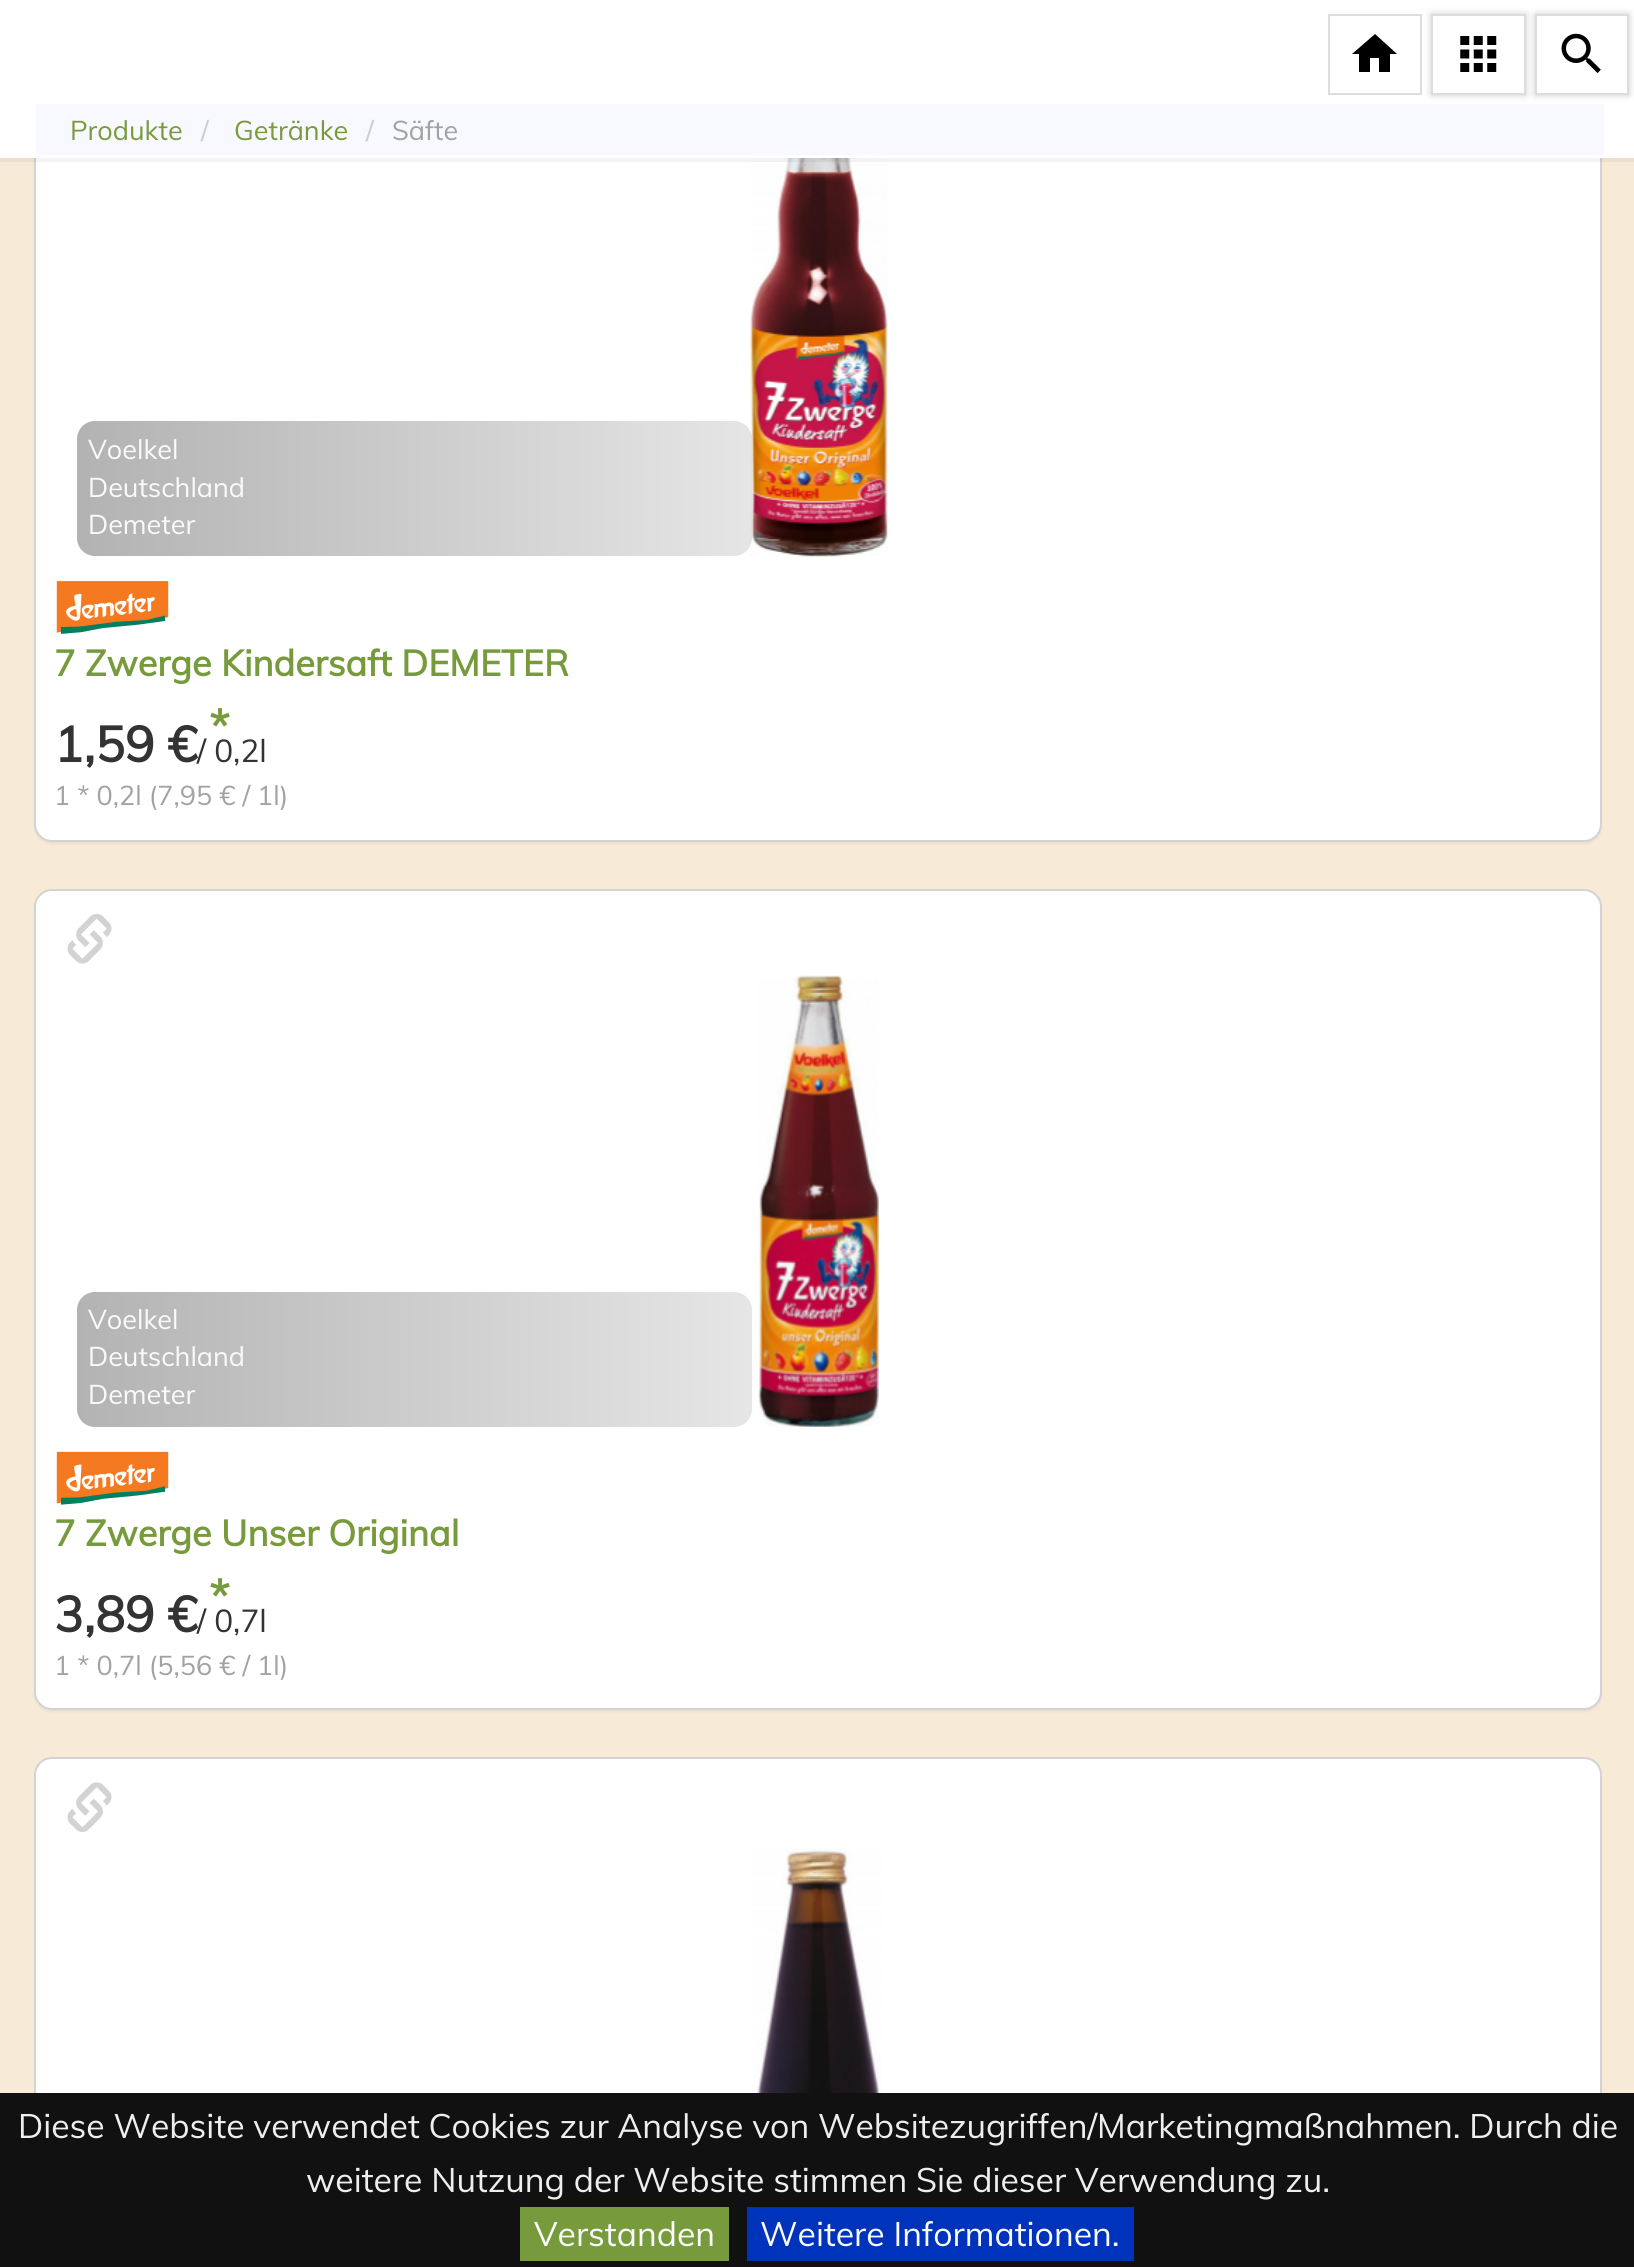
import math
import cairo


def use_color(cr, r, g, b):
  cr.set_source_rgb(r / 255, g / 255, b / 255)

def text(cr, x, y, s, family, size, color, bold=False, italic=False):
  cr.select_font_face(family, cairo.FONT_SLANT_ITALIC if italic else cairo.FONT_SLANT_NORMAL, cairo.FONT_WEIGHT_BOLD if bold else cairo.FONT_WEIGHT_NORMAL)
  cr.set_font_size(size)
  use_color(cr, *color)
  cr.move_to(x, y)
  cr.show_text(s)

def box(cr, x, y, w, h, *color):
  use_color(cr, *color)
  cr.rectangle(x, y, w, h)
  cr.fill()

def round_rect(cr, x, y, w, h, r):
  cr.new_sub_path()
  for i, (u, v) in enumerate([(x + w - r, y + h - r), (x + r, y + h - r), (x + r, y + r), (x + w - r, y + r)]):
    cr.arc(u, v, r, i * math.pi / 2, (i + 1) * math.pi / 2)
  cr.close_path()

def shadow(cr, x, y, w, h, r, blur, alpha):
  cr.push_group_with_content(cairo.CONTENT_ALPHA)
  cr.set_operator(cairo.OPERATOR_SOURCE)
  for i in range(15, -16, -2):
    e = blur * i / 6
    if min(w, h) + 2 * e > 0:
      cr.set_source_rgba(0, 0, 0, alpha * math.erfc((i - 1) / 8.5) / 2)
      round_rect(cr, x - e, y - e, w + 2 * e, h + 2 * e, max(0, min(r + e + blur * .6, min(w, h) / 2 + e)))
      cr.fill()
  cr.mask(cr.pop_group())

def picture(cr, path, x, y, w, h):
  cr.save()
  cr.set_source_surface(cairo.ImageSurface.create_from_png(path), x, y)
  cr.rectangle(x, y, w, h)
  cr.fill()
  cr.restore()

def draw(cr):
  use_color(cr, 247, 234, 215)
  cr.paint()
  use_color(cr, 0, 0, 0)
  shadow(cr, 34, 20, 1568, 824, 18, 1, 0.05)
  use_color(cr, 255, 255, 255)
  round_rect(cr, 35, 19, 1566, 822, 17)
  cr.fill_preserve()
  use_color(cr, 211, 211, 211)
  cr.stroke()
  picture(cr, "img_03.png", 750, 158, 138, 399)
  cr.set_source_rgba(0, 0, 0, 0.05)
  cr.rectangle(0, 158, 1634, 4)
  cr.fill()
  box(cr, 0, 0, 1634, 158, 255, 255, 255)
  use_color(cr, 0, 0, 0)
  shadow(cr, 1535, 14, 94, 81, 0, 3.5, 0.2)
  use_color(cr, 255, 255, 255)
  cr.rectangle(1536, 15, 92, 79)
  cr.fill_preserve()
  use_color(cr, 221, 221, 221)
  cr.stroke()
  use_color(cr, 0, 0, 0)
  shadow(cr, 1431, 14, 95, 81, 0, 3.5, 0.2)
  cr.rectangle(1329, 15, 92, 79)
  use_color(cr, 221, 221, 221)
  cr.stroke()
  use_color(cr, 0, 0, 0)
  cr.new_path()
  cr.move_to(1370, 72)
  cr.line_to(1370, 58)
  cr.line_to(1379, 58)
  cr.line_to(1379, 72)
  cr.line_to(1390, 72)
  cr.line_to(1390, 54)
  cr.line_to(1397, 54)
  cr.line_to(1375, 34)
  cr.line_to(1352, 54)
  cr.line_to(1359, 54)
  cr.line_to(1359, 72)
  cr.close_path()
  cr.fill()
  use_color(cr, 255, 255, 255)
  cr.rectangle(1432, 15, 93, 79)
  cr.fill_preserve()
  use_color(cr, 221, 221, 221)
  cr.stroke()
  picture(cr, "img_01.png", 1460, 36, 37, 36)
  picture(cr, "img_02.png", 1561, 33, 40, 40)
  box(cr, 36, 104, 1568, 51, 248, 248, 255)
  gradient = cairo.LinearGradient(77, 488, 752, 488)
  gradient.add_color_stop_rgba(0, 0, 0, 0, 0.3)
  gradient.add_color_stop_rgba(1, 0, 0, 0, 0.1)
  cr.set_source(gradient)
  round_rect(cr, 77, 421, 675, 135, 18)
  cr.fill()
  picture(cr, "img_04.png", 56, 581, 113, 53)
  use_color(cr, 0, 0, 0)
  shadow(cr, 34, 891, 1568, 821, 18, 1, 0.05)
  use_color(cr, 255, 255, 255)
  round_rect(cr, 35, 890, 1566, 819, 17)
  cr.fill_preserve()
  use_color(cr, 211, 211, 211)
  cr.stroke()
  picture(cr, "img_05.png", 67, 913, 45, 51)
  gradient = cairo.LinearGradient(77, 1359, 752, 1359)
  gradient.add_color_stop_rgba(0, 0.702, 0.702, 0.702, 1)
  gradient.add_color_stop_rgba(1, 0.902, 0.902, 0.902, 1)
  cr.set_source(gradient)
  round_rect(cr, 77, 1292, 675, 135, 18)
  cr.fill()
  picture(cr, "img_06.png", 758, 975, 121, 452)
  picture(cr, "img_07.png", 56, 1451, 113, 54)
  use_color(cr, 255, 255, 255)
  round_rect(cr, 35, 1758, 1566, 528, 17)
  cr.fill_preserve()
  use_color(cr, 211, 211, 211)
  cr.stroke()
  picture(cr, "img_08.png", 67, 1782, 45, 50)
  picture(cr, "img_09.png", 752, 1848, 130, 245)
  box(cr, 0, 2093, 1634, 174, 17, 17, 17)
  box(cr, 520, 2207, 209, 54, 119, 155, 60)
  box(cr, 747, 2207, 387, 54, 0, 51, 187)
  text(cr, 70, 140, "Produkte", "Muli", 27, (119, 155, 60))
  text(cr, 201, 140, "/", "Muli", 27, (204, 204, 204))
  text(cr, 234, 140, "Getränke", "Muli", 27, (119, 155, 60))
  text(cr, 366, 140, "/", "Muli", 27, (204, 204, 204))
  text(cr, 392, 140, "Säfte", "Muli", 27, (162, 162, 162))
  text(cr, 88, 459, "Voelkel", "Muli", 27, (250, 250, 250))
  text(cr, 88, 497, "Deutschland", "Muli", 27, (250, 250, 250))
  text(cr, 88, 534, "Demeter", "Muli", 27, (250, 250, 250))
  text(cr, 54, 676, "7 Zwerge Kindersaft DEMETER", "Muli", 36, (119, 155, 60), bold=True)
  text(cr, 209, 743, "*", "Muli", 46, (119, 155, 60), bold=True)
  text(cr, 54, 762, "1,59 €", "Muli", 49.5, (51, 51, 51), bold=True)
  text(cr, 197, 762, "/ 0,2l", "Muli", 31.5, (51, 51, 51))
  text(cr, 54, 805, "1 * 0,2l (7,95 € / 1l)", "Muli", 27, (162, 162, 162))
  text(cr, 88, 1329, "Voelkel", "Muli", 27, (250, 250, 250))
  text(cr, 88, 1366, "Deutschland", "Muli", 27, (250, 250, 250))
  text(cr, 88, 1404, "Demeter", "Muli", 27, (250, 250, 250))
  text(cr, 54, 1546, "7 Zwerge Unser Original", "Muli", 36, (119, 155, 60), bold=True)
  text(cr, 209, 1613, "*", "Muli", 46, (119, 155, 60), bold=True)
  text(cr, 54, 1632, "3,89 €", "Muli", 49.5, (51, 51, 51), bold=True)
  text(cr, 197, 1632, "/ 0,7l", "Muli", 31.5, (51, 51, 51))
  text(cr, 54, 1675, "1 * 0,7l (5,56 € / 1l)", "Muli", 27, (162, 162, 162))
  text(cr, 18, 2138, "Diese Website verwendet Cookies zur Analyse von Websitezugriffen/Marketingmaßnahmen. Durch die", "Muli", 33.75, (238, 238, 238))
  text(cr, 306, 2192, "weitere Nutzung der Website stimmen Sie dieser Verwendung zu.", "Muli", 33.75, (238, 238, 238))
  text(cr, 534, 2246, "Verstanden", "Muli", 33.75, (250, 250, 250))
  text(cr, 760, 2246, "Weitere Informationen.", "Muli", 33.75, (250, 250, 250))


surface = cairo.ImageSurface(cairo.FORMAT_RGB24, 1634, 2267)
cr = cairo.Context(surface)
options = cairo.FontOptions()
options.set_hint_metrics(cairo.HINT_METRICS_OFF)
options.set_hint_style(cairo.HINT_STYLE_NONE)
cr.set_font_options(options)
cr.set_miter_limit(4)
draw(cr)
surface.write_to_png("out.png")
